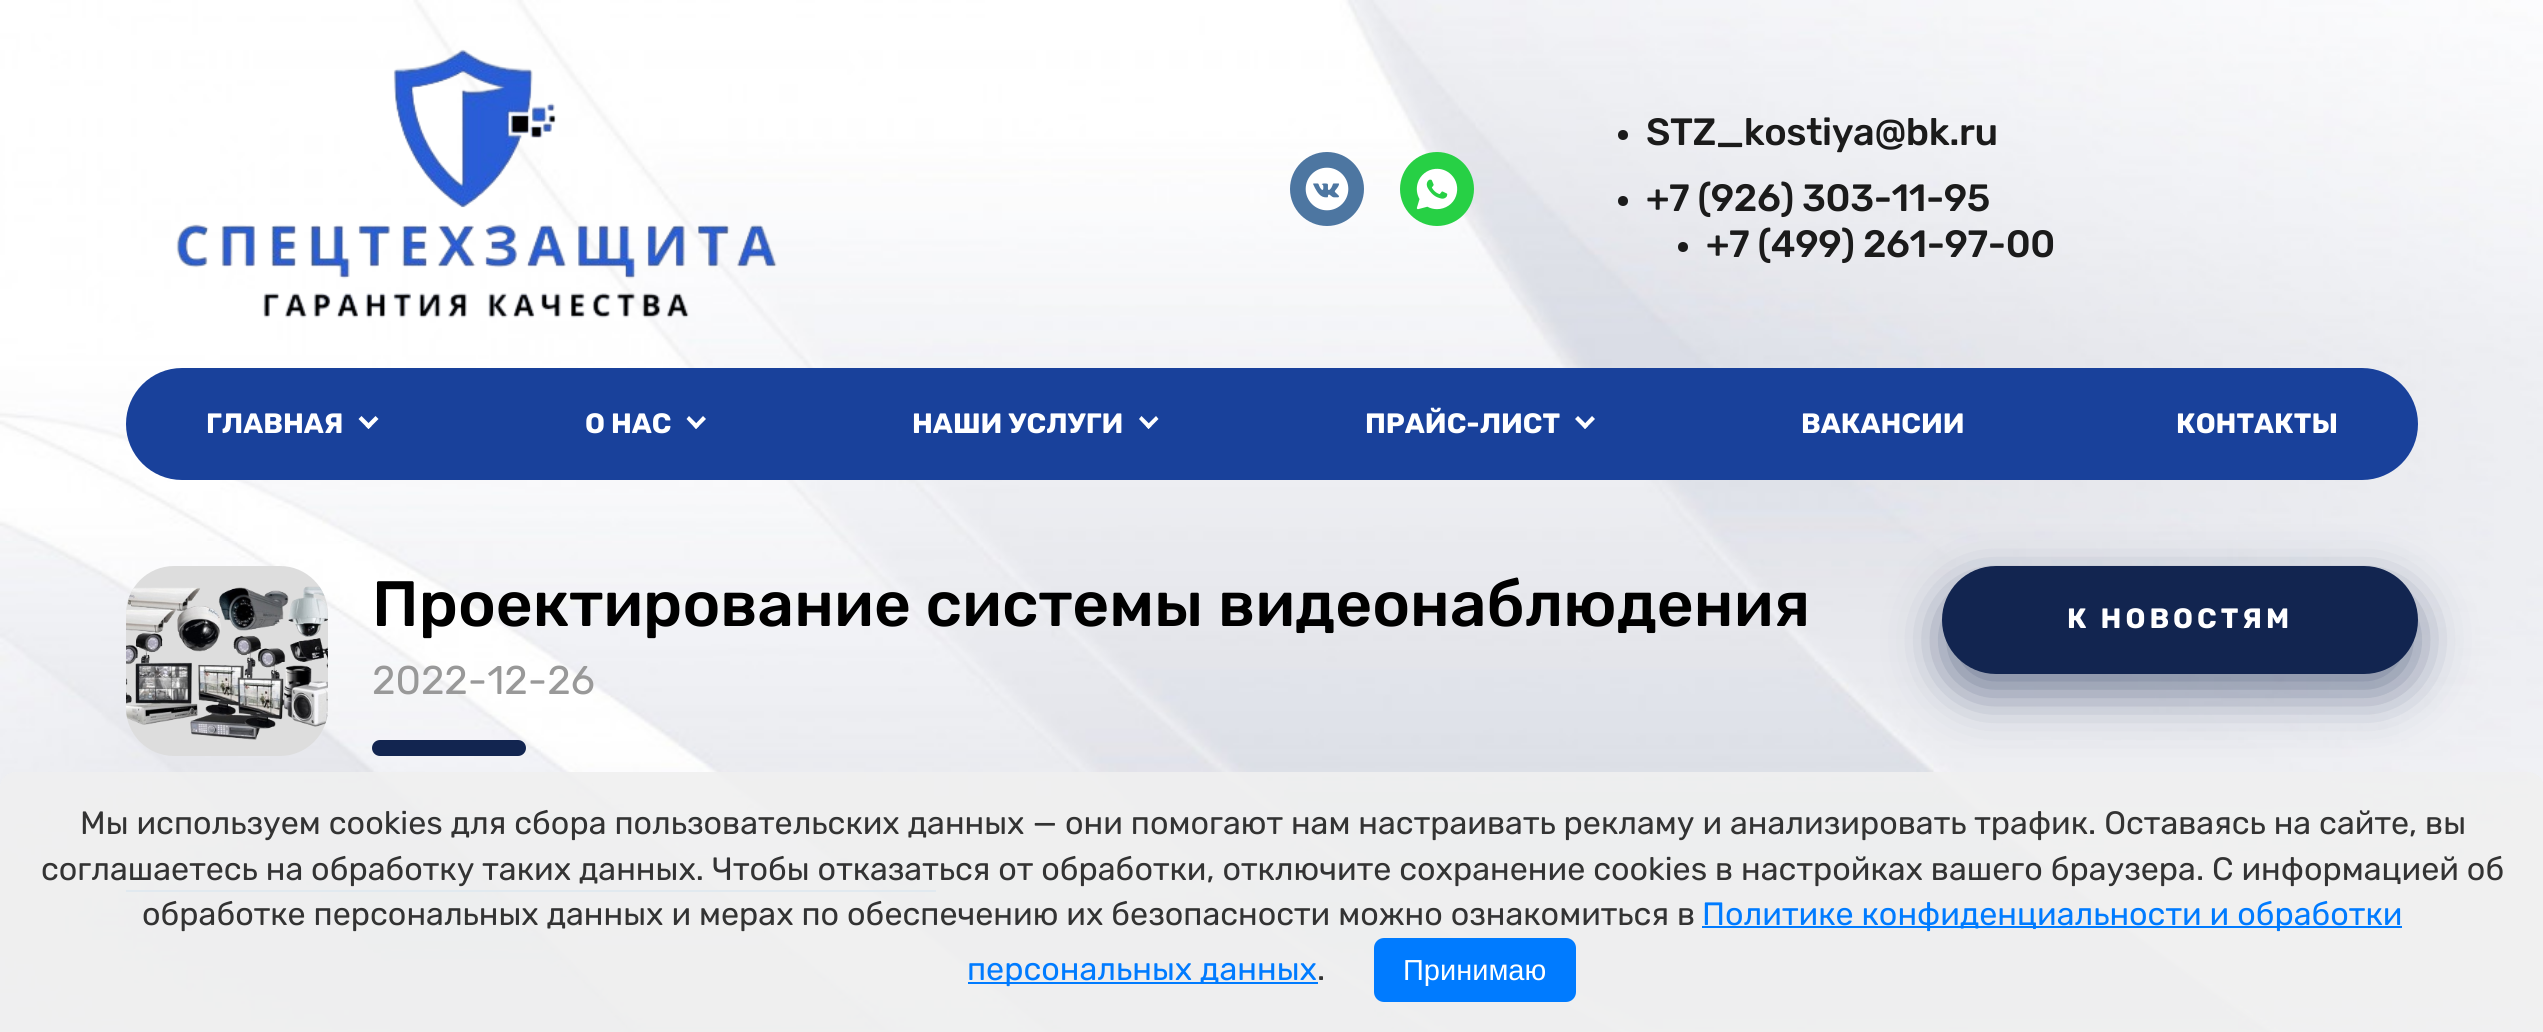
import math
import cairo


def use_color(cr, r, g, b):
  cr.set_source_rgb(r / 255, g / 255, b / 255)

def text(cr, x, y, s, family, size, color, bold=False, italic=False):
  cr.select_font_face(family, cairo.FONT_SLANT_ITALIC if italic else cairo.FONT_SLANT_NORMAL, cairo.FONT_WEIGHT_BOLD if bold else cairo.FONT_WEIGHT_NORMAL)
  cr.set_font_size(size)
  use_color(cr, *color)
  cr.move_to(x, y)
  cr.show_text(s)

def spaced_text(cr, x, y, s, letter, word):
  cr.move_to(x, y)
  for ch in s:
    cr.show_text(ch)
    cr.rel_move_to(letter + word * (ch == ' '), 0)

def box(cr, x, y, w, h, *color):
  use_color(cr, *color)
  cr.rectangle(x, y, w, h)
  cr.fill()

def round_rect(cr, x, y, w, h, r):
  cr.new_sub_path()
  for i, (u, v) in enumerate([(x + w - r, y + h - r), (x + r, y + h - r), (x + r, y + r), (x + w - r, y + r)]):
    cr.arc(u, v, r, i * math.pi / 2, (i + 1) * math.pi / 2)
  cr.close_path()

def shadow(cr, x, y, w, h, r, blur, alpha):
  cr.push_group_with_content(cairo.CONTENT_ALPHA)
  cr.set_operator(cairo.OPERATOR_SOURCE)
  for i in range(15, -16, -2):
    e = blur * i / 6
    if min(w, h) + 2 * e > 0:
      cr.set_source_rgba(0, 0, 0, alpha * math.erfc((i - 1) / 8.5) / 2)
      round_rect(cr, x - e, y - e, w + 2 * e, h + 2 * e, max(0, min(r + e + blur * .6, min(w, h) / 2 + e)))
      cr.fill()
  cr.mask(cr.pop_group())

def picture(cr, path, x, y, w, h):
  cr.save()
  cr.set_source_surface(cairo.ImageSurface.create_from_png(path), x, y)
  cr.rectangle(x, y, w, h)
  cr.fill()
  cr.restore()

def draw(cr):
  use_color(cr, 255, 255, 255)
  cr.paint()
  picture(cr, "img_01.png", 0, 0, 2543, 1032)
  picture(cr, "img_02.png", 176, 49, 601, 269)
  picture(cr, "img_03.png", 1290, 152, 74, 74)
  picture(cr, "img_04.png", 1400, 152, 74, 74)
  use_color(cr, 27, 27, 27)
  cr.arc(1623, 135, 5, 0, 2 * math.pi)
  cr.fill()
  cr.arc(1623, 201, 5, 0, 2 * math.pi)
  cr.fill()
  cr.arc(1683, 247, 5, 0, 2 * math.pi)
  cr.fill()
  use_color(cr, 25, 65, 155)
  round_rect(cr, 126, 368, 2292, 112, 56)
  cr.fill()
  use_color(cr, 255, 255, 255)
  cr.new_path()
  cr.move_to(365.5, 426)
  cr.line_to(375.5, 416)
  cr.line_to(378.5, 419)
  cr.line_to(368.5, 429)
  cr.close_path()
  cr.fill()
  cr.new_path()
  cr.move_to(358.5, 419)
  cr.line_to(361.5, 416)
  cr.line_to(371.5, 426)
  cr.line_to(368.5, 429)
  cr.close_path()
  cr.fill()
  cr.new_path()
  cr.move_to(693.5, 426)
  cr.line_to(703, 416)
  cr.line_to(706, 419)
  cr.line_to(696, 429)
  cr.close_path()
  cr.fill()
  cr.new_path()
  cr.move_to(686.5, 419)
  cr.line_to(689, 416)
  cr.line_to(699, 426)
  cr.line_to(696, 429)
  cr.close_path()
  cr.fill()
  cr.new_path()
  cr.move_to(1146, 426)
  cr.line_to(1156, 416)
  cr.line_to(1158.5, 419)
  cr.line_to(1148.5, 429)
  cr.close_path()
  cr.fill()
  cr.new_path()
  cr.move_to(1139, 419)
  cr.line_to(1141.5, 416)
  cr.line_to(1151.5, 426)
  cr.line_to(1148.5, 429)
  cr.close_path()
  cr.fill()
  cr.new_path()
  cr.move_to(1582.5, 426)
  cr.line_to(1592, 416)
  cr.line_to(1595, 419)
  cr.line_to(1585, 429)
  cr.close_path()
  cr.fill()
  cr.new_path()
  cr.move_to(1575, 419)
  cr.line_to(1578, 416)
  cr.line_to(1588, 426)
  cr.line_to(1585, 429)
  cr.close_path()
  cr.fill()
  use_color(cr, 221, 221, 221)
  round_rect(cr, 126, 566, 202, 190, 48)
  cr.fill()
  picture(cr, "img_05.png", 126, 586, 202, 154)
  use_color(cr, 18, 37, 80)
  round_rect(cr, 372, 740, 154, 16, 8)
  cr.fill()
  use_color(cr, 18, 37, 80)
  shadow(cr, 1942, 586, 476, 108, 54, 25, 0.54)
  use_color(cr, 18, 37, 80)
  round_rect(cr, 1942, 566, 476, 108, 54)
  cr.fill()
  box(cr, 126, 890, 810, 2, 92, 171, 232)
  cr.set_source_rgba(0.941, 0.941, 0.941, 0.9)
  cr.new_path()
  cr.move_to(16, 772)
  cr.line_to(2528, 772)
  cr.curve_to(2537, 772, 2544, 779, 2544, 788)
  cr.line_to(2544, 1032)
  cr.line_to(0, 1032)
  cr.line_to(0, 788)
  cr.curve_to(0, 779, 7, 772, 16, 772)
  cr.close_path()
  cr.fill()
  box(cr, 1702, 926, 700, 2, 0, 123, 255)
  box(cr, 968, 982, 350, 2, 0, 123, 255)
  round_rect(cr, 1374, 938, 202, 64, 10)
  cr.fill()
  cr.select_font_face("Rubik Medium")
  cr.set_font_size(38)
  use_color(cr, 27, 27, 27)
  spaced_text(cr, 1646, 145, "STZ_kostiya@bk.ru", -0.4, 0)
  spaced_text(cr, 1646, 211, "+7 (926) 303-11-95", -0.4, 0)
  spaced_text(cr, 1706, 257, "+7 (499) 261-97-00", -0.4, 0)
  text(cr, 206, 433, "ГЛАВНАЯ", "Rubik", 28, (255, 255, 255), bold=True)
  text(cr, 585, 433, "О НАС", "Rubik", 28, (255, 255, 255), bold=True)
  text(cr, 912, 433, "НАШИ УСЛУГИ", "Rubik", 28, (255, 255, 255), bold=True)
  text(cr, 1365, 433, "ПРАЙС-ЛИСТ", "Rubik", 28, (255, 255, 255), bold=True)
  text(cr, 1801, 433, "ВАКАНСИИ", "Rubik", 28, (255, 255, 255), bold=True)
  text(cr, 2176, 433, "КОНТАКТЫ", "Rubik", 28, (255, 255, 255), bold=True)
  text(cr, 372, 626, "Проектирование системы видеонаблюдения", "Rubik Medium", 64, (0, 0, 0))
  text(cr, 372, 694, "2022-12-26", "Rubik", 40, (153, 153, 153))
  cr.select_font_face("Rubik", cairo.FONT_SLANT_NORMAL, cairo.FONT_WEIGHT_BOLD)
  cr.set_font_size(28)
  use_color(cr, 255, 255, 255)
  spaced_text(cr, 2067, 628, "К НОВОСТЯМ", 4, 0)
  text(cr, 80, 834, "Мы используем cookies для сбора пользовательских данных — они помогают нам настраивать рекламу и анализировать трафик. Оставаясь на сайте, вы", "Rubik", 32.3, (51, 51, 51))
  text(cr, 41, 880, "соглашаетесь на обработку таких данных. Чтобы отказаться от обработки, отключите сохранение cookies в настройках вашего браузера. С информацией об", "Rubik", 32.3, (51, 51, 51))
  text(cr, 142, 925, "обработке персональных данных и мерах по обеспечению их безопасности можно ознакомиться в", "Rubik", 32.3, (51, 51, 51))
  text(cr, 1702, 925, "Политике конфиденциальности и обработки", "Rubik", 32.3, (0, 123, 255))
  text(cr, 967, 980, "персональных данных", "Rubik", 32.3, (0, 123, 255))
  text(cr, 1317, 980, ".", "Rubik", 32.3, (51, 51, 51))
  text(cr, 1403, 980, "Принимаю", "Liberation Sans", 29, (255, 255, 255))


surface = cairo.ImageSurface(cairo.FORMAT_RGB24, 2543, 1032)
cr = cairo.Context(surface)
options = cairo.FontOptions()
options.set_hint_metrics(cairo.HINT_METRICS_OFF)
options.set_hint_style(cairo.HINT_STYLE_NONE)
cr.set_font_options(options)
cr.set_miter_limit(4)
draw(cr)
surface.write_to_png("out.png")
